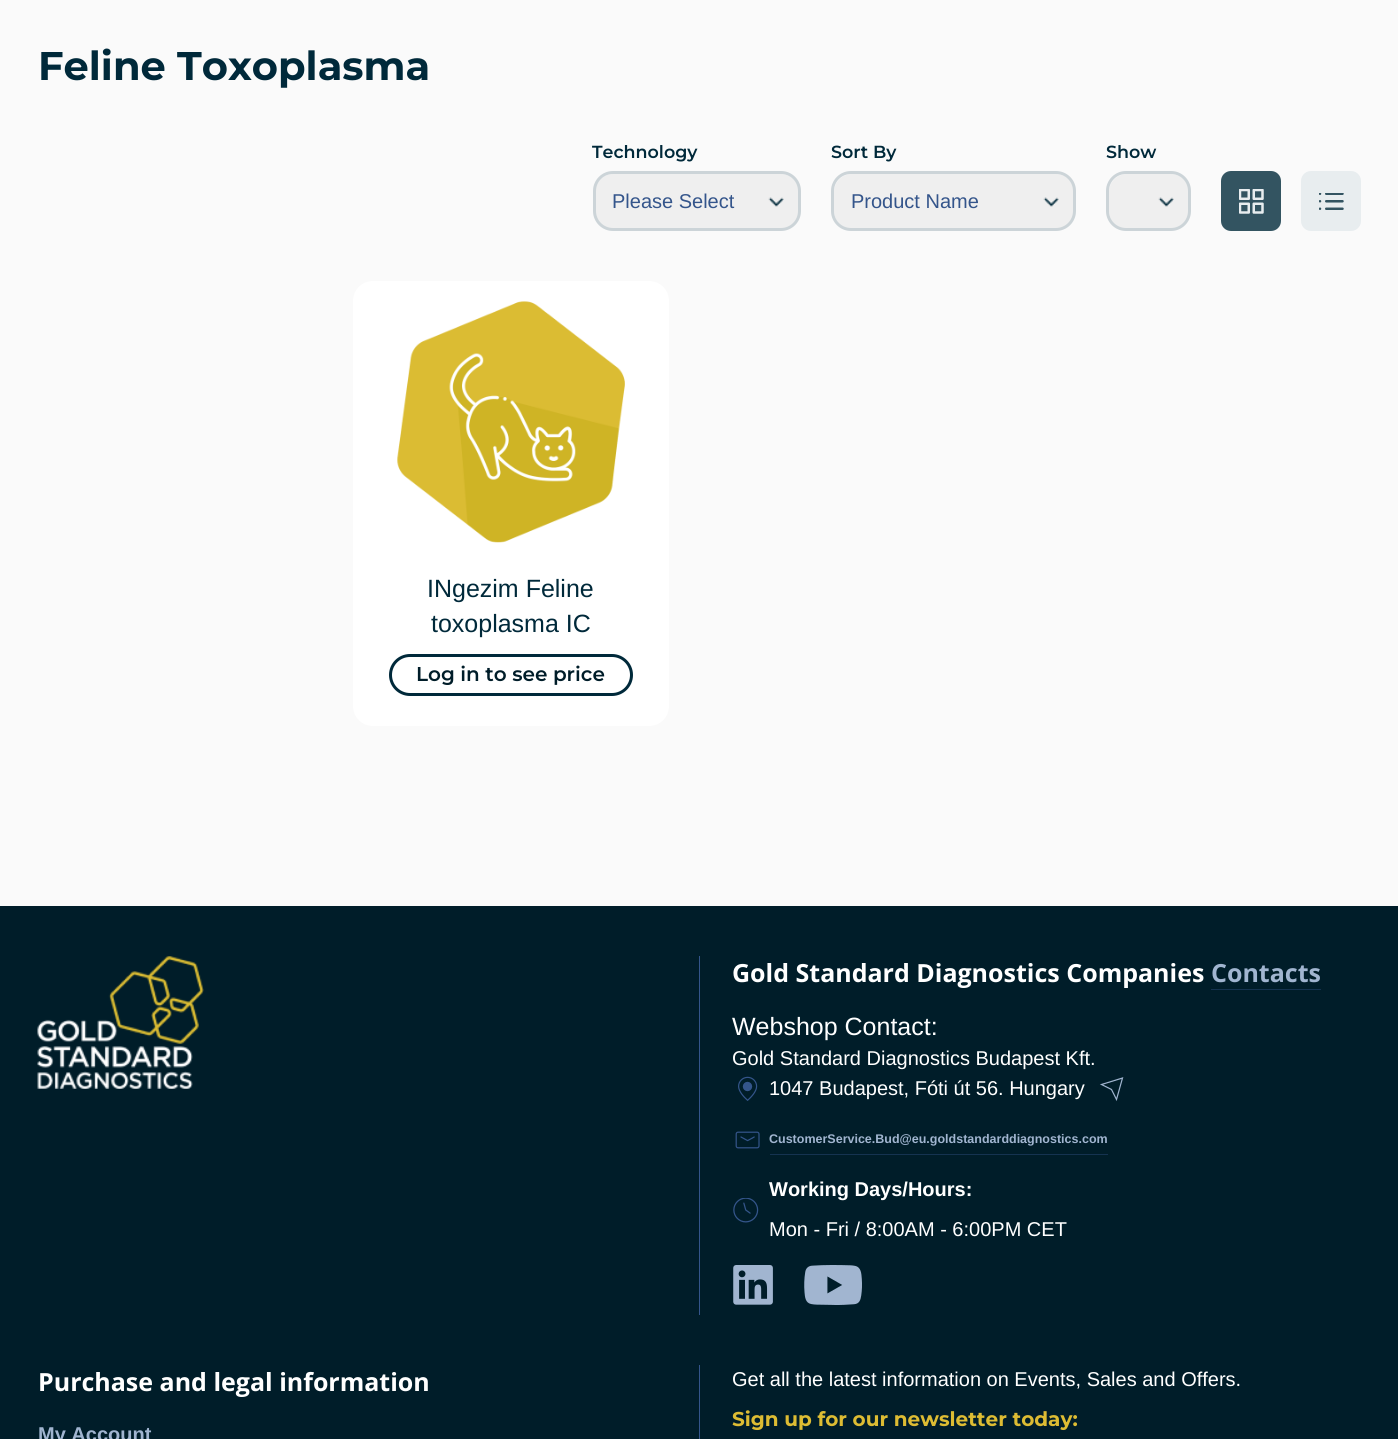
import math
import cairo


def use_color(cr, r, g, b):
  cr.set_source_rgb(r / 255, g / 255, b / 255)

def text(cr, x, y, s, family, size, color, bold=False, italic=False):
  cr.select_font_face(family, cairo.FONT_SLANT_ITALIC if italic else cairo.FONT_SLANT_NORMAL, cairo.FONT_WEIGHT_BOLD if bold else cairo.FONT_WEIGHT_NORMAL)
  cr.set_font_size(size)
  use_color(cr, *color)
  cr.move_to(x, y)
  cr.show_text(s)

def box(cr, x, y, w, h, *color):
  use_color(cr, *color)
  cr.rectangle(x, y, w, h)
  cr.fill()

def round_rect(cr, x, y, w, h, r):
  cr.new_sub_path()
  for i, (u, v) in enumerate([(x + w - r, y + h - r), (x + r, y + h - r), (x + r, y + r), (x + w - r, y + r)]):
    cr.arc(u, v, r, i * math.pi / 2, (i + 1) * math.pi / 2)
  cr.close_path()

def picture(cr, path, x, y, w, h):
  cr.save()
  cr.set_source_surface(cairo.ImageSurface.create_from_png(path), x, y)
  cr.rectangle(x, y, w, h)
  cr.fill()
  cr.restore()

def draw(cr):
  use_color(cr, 250, 250, 250)
  cr.paint()
  use_color(cr, 239, 239, 239)
  round_rect(cr, 595, 174, 204, 55, 18)
  cr.fill()
  picture(cr, "img_01.png", 768, 197, 16, 10)
  round_rect(cr, 594.5, 172.5, 205, 57, 18.5)
  use_color(cr, 204, 212, 216)
  cr.set_line_width(3)
  cr.stroke()
  use_color(cr, 239, 239, 239)
  round_rect(cr, 834, 174, 240, 55, 18)
  cr.fill()
  picture(cr, "img_02.png", 1043, 197, 16, 10)
  round_rect(cr, 832.5, 172.5, 242, 57, 18.5)
  use_color(cr, 204, 212, 216)
  cr.stroke()
  use_color(cr, 239, 239, 239)
  round_rect(cr, 1109, 174, 80, 55, 18)
  cr.fill()
  picture(cr, "img_03.png", 1158, 197, 16, 10)
  round_rect(cr, 1107.5, 172.5, 82, 57, 18.5)
  use_color(cr, 204, 212, 216)
  cr.stroke()
  use_color(cr, 51, 84, 97)
  round_rect(cr, 1221, 171, 60, 60, 10)
  cr.fill()
  picture(cr, "img_04.png", 1239, 189, 25, 25)
  use_color(cr, 232, 237, 239)
  round_rect(cr, 1301, 171, 60, 60, 10)
  cr.fill()
  picture(cr, "img_05.png", 1319, 193, 25, 17)
  use_color(cr, 255, 255, 255)
  round_rect(cr, 353, 281, 316, 445, 20)
  cr.fill()
  picture(cr, "img_06.png", 397, 301, 228, 242)
  round_rect(cr, 390.5, 655.5, 241, 39, 19.5)
  use_color(cr, 0, 41, 58)
  cr.stroke()
  box(cr, 0, 906, 1398, 533, 0, 29, 41)
  box(cr, 699, 956, 1, 359, 52, 85, 139)
  picture(cr, "img_07.png", 37, 956, 167, 133)
  box(cr, 1211, 989, 110, 1, 21, 51, 80)
  picture(cr, "img_08.png", 738, 1076, 20, 25)
  cr.new_path()
  cr.move_to(1101.5, 1084.5)
  cr.line_to(1122.5, 1078)
  cr.line_to(1116.5, 1099.5)
  cr.line_to(1111.5, 1089.5)
  cr.close_path()
  use_color(cr, 161, 181, 208)
  cr.set_line_width(1.2)
  cr.stroke()
  picture(cr, "img_09.png", 735, 1131, 25, 18)
  box(cr, 770, 1154, 338, 1, 21, 51, 80)
  picture(cr, "img_10.png", 733, 1198, 26, 25)
  picture(cr, "img_11.png", 733, 1265, 40, 40)
  picture(cr, "img_12.png", 804, 1265, 58, 40)
  box(cr, 699, 1365, 1, 74, 52, 85, 139)
  text(cr, 38, 80, "Feline Toxoplasma", "Montserrat", 40, (0, 41, 58), bold=True)
  text(cr, 592, 158, "Technology", "Montserrat SemiBold", 17.5, (0, 41, 58))
  text(cr, 612, 208, "Please Select", "Liberation Sans", 20, (52, 85, 139))
  text(cr, 831, 158, "Sort By", "Montserrat SemiBold", 17.5, (0, 41, 58))
  text(cr, 851, 208, "Product Name", "Liberation Sans", 20, (52, 85, 139))
  text(cr, 1106, 158, "Show", "Montserrat SemiBold", 17.5, (0, 41, 58))
  text(cr, 427, 597, "INgezim Feline", "Liberation Sans", 25, (0, 41, 58))
  text(cr, 431, 632, "toxoplasma IC", "Liberation Sans", 25, (0, 41, 58))
  text(cr, 416, 681, "Log in to see price", "Montserrat SemiBold", 20, (0, 29, 41))
  text(cr, 732, 982, "Gold Standard Diagnostics Companies", "Open Sans", 25, (255, 255, 255), bold=True)
  text(cr, 1211, 982, "Contacts", "Open Sans", 25, (161, 181, 208), bold=True)
  text(cr, 732, 1035, "Webshop Contact:", "Liberation Sans", 25, (255, 255, 255))
  text(cr, 732, 1065, "Gold Standard Diagnostics Budapest Kft.", "Liberation Sans", 20, (255, 255, 255))
  text(cr, 769, 1095, "1047 Budapest, Fóti út 56. Hungary", "Liberation Sans", 20, (255, 255, 255))
  text(cr, 769, 1143, "CustomerService.Bud@eu.goldstandarddiagnostics.com", "Liberation Sans", 12.5, (161, 181, 208), bold=True)
  text(cr, 769, 1196, "Working Days/Hours:", "Liberation Sans", 20, (255, 255, 255), bold=True)
  text(cr, 769, 1236, "Mon - Fri / 8:00AM - 6:00PM CET", "Liberation Sans", 20, (255, 255, 255))
  text(cr, 38, 1391, "Purchase and legal information", "Open Sans", 25, (255, 255, 255), bold=True)
  text(cr, 38, 1441, "My Account", "Liberation Sans", 20, (161, 181, 208), bold=True)
  text(cr, 732, 1386, "Get all the latest information on Events, Sales and Offers.", "Liberation Sans", 20, (255, 255, 255))
  text(cr, 732, 1426, "Sign up for our newsletter today:", "Montserrat", 20, (221, 188, 51), bold=True)


surface = cairo.ImageSurface(cairo.FORMAT_RGB24, 1398, 1439)
cr = cairo.Context(surface)
options = cairo.FontOptions()
options.set_hint_metrics(cairo.HINT_METRICS_OFF)
options.set_hint_style(cairo.HINT_STYLE_NONE)
cr.set_font_options(options)
cr.set_miter_limit(4)
draw(cr)
surface.write_to_png("out.png")
